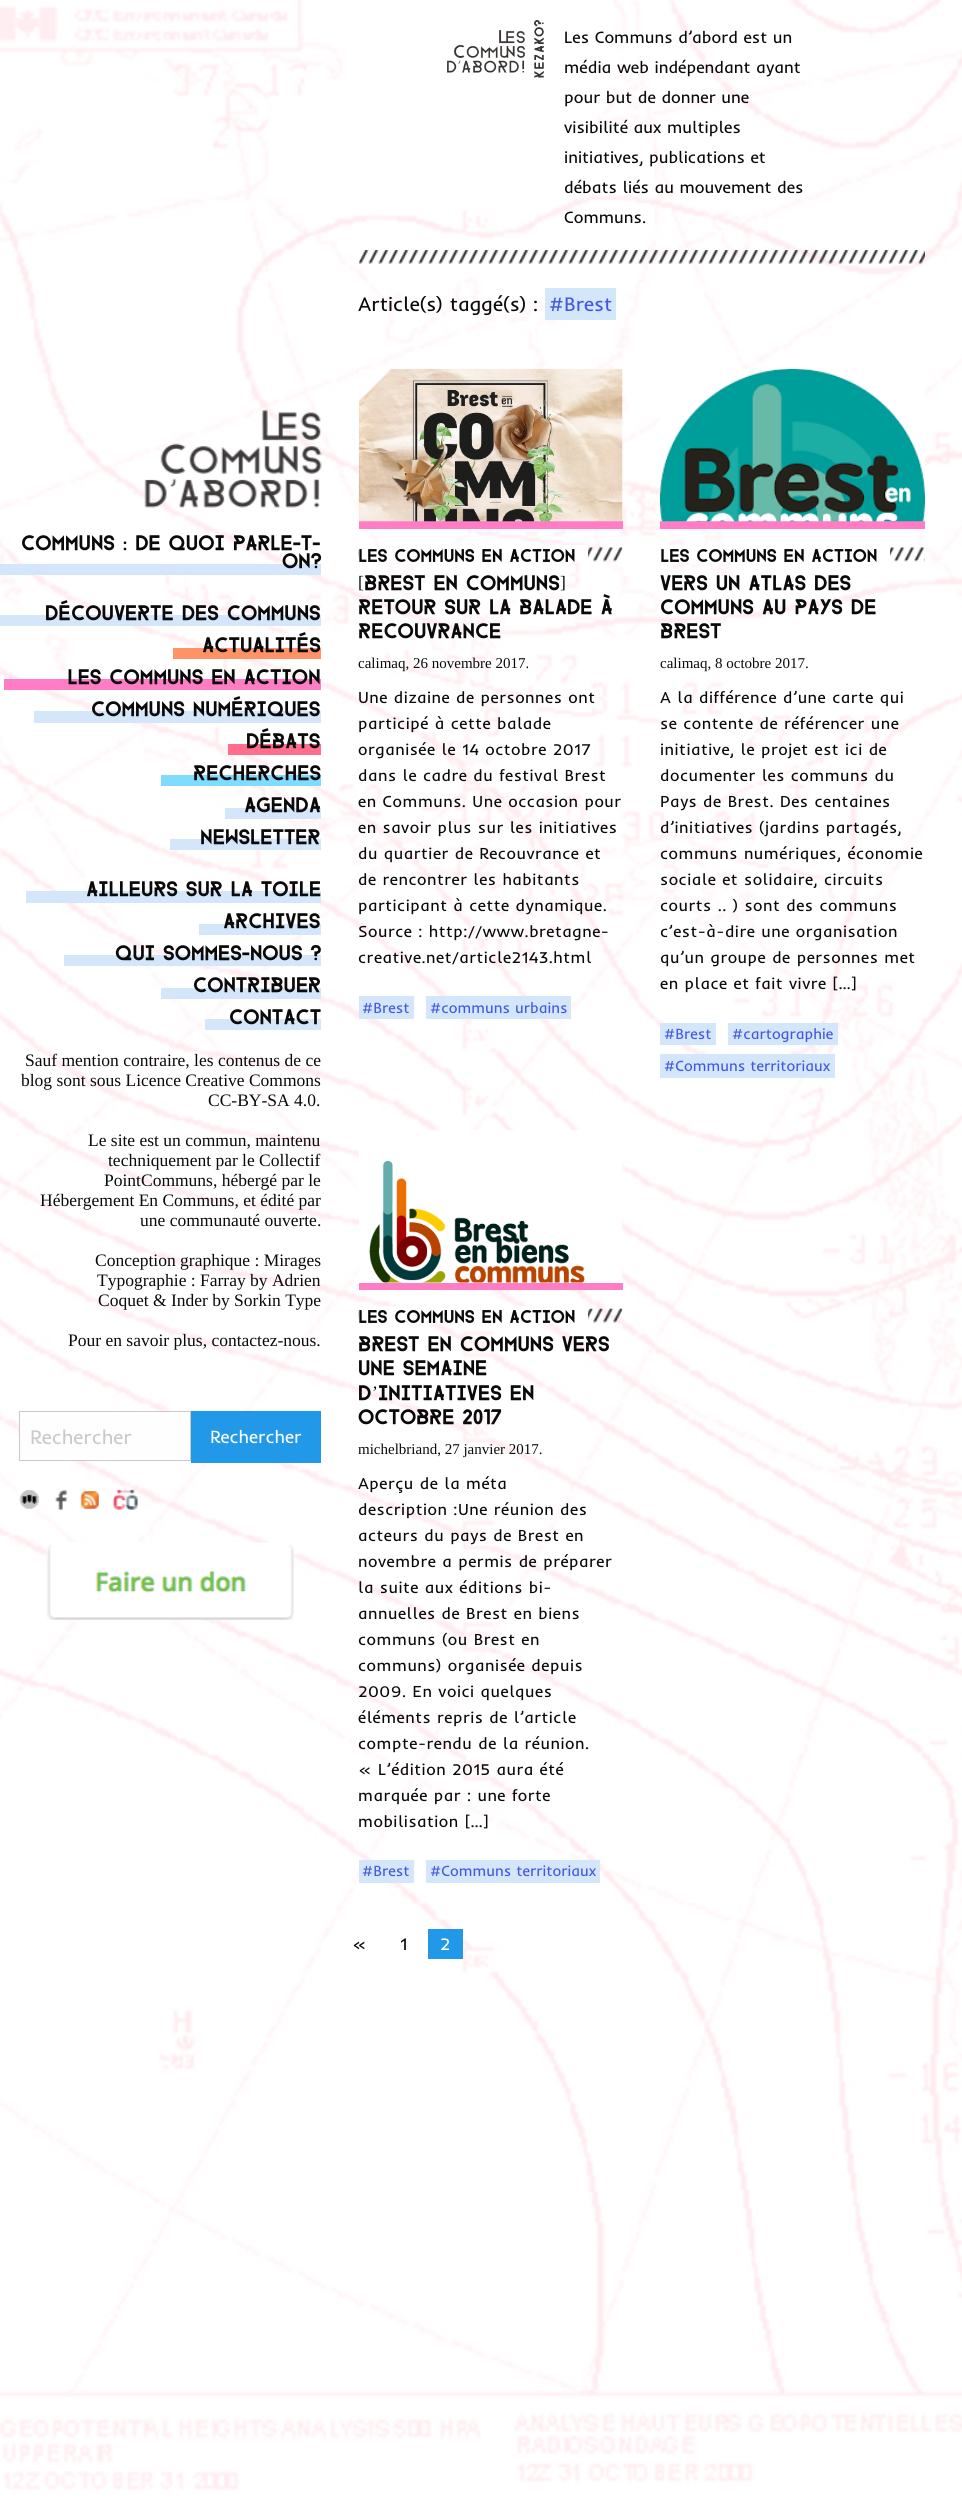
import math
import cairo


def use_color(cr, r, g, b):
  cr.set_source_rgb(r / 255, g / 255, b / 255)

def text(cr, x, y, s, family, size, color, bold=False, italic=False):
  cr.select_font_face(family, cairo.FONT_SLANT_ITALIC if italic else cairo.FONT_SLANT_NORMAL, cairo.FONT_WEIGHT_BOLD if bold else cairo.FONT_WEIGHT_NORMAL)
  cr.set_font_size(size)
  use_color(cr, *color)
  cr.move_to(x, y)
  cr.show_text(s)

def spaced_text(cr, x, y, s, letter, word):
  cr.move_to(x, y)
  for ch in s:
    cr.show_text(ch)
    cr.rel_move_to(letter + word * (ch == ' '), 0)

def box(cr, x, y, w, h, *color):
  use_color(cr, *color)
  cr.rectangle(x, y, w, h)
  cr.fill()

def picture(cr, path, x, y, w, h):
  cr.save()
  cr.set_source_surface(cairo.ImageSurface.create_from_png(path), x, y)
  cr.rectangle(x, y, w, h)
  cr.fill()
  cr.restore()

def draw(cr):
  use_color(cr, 255, 255, 255)
  cr.paint()
  picture(cr, "img_01.png", 0, 0, 962, 2490)
  picture(cr, "img_02.png", 447, 20, 97, 58)
  picture(cr, "img_03.png", 144, 410, 178, 98)
  box(cr, 0, 564, 321, 11, 211, 230, 250)
  box(cr, 0, 615, 321, 11, 211, 230, 250)
  box(cr, 173, 648, 148, 11, 255, 147, 102)
  box(cr, 4, 679, 317, 11, 255, 125, 196)
  box(cr, 34, 711, 287, 12, 211, 230, 250)
  box(cr, 228, 744, 93, 11, 255, 110, 139)
  box(cr, 161, 775, 160, 11, 128, 220, 255)
  box(cr, 225, 808, 96, 11, 211, 230, 250)
  box(cr, 170, 839, 151, 11, 211, 230, 250)
  box(cr, 26, 891, 295, 12, 211, 230, 250)
  box(cr, 199, 924, 122, 11, 211, 230, 250)
  box(cr, 64, 955, 257, 11, 211, 230, 250)
  box(cr, 161, 988, 160, 11, 211, 230, 250)
  box(cr, 205, 1019, 116, 11, 211, 230, 250)
  use_color(cr, 254, 254, 254)
  cr.rectangle(19.5, 1411.5, 171, 49)
  cr.fill_preserve()
  use_color(cr, 202, 202, 202)
  cr.set_line_width(1)
  cr.stroke()
  box(cr, 191, 1411, 130, 52, 33, 153, 232)
  picture(cr, "img_04.png", 19, 1490, 21, 20)
  picture(cr, "img_05.png", 55, 1489, 13, 21)
  picture(cr, "img_06.png", 80, 1491, 19, 18)
  picture(cr, "img_07.png", 112, 1489, 27, 21)
  picture(cr, "img_08.png", 46, 1542, 248, 78)
  picture(cr, "img_09.png", 358, 250, 567, 14)
  box(cr, 545, 288, 71, 32, 211, 230, 250)
  box(cr, 359, 521, 264, 8, 255, 125, 196)
  picture(cr, "img_10.png", 358, 368, 265, 154)
  picture(cr, "img_11.png", 359, 369, 33, 33)
  picture(cr, "img_12.png", 358, 547, 265, 15)
  box(cr, 359, 545, 229, 18, 255, 255, 255)
  box(cr, 359, 996, 55, 23, 211, 230, 250)
  box(cr, 426, 996, 145, 23, 211, 230, 250)
  box(cr, 660, 521, 265, 8, 255, 125, 196)
  picture(cr, "img_13.png", 660, 368, 265, 154)
  picture(cr, "img_14.png", 890, 547, 35, 15)
  box(cr, 667, 545, 55, 18, 255, 255, 255)
  box(cr, 660, 1023, 56, 22, 211, 230, 250)
  box(cr, 728, 1023, 110, 22, 211, 230, 250)
  box(cr, 660, 1054, 175, 24, 211, 230, 250)
  box(cr, 359, 1283, 264, 7, 255, 125, 196)
  box(cr, 358, 1153, 1, 3, 255, 242, 245)
  picture(cr, "img_15.png", 359, 1130, 264, 153)
  picture(cr, "img_16.png", 358, 1308, 265, 15)
  box(cr, 359, 1306, 229, 18, 255, 255, 255)
  box(cr, 359, 1860, 55, 23, 211, 230, 250)
  box(cr, 426, 1860, 174, 23, 211, 230, 250)
  box(cr, 428, 1929, 35, 30, 33, 153, 232)
  text(cr, 564, 43, "Les Communs d’abord est un", "Inder", 16.7, (10, 10, 10))
  text(cr, 564, 73, "média web indépendant ayant", "Inder", 16.7, (10, 10, 10))
  text(cr, 564, 103, "pour but de donner une", "Inder", 16.7, (10, 10, 10))
  text(cr, 564, 133, "visibilité aux multiples", "Inder", 16.7, (10, 10, 10))
  text(cr, 564, 163, "initiatives, publications et", "Inder", 16.7, (10, 10, 10))
  text(cr, 564, 193, "débats liés au mouvement des", "Inder", 16.7, (10, 10, 10))
  text(cr, 564, 223, "Communs.", "Inder", 16.7, (10, 10, 10))
  text(cr, 21, 548, "Communs : de quoi parle-t-", "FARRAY", 17.5, (10, 10, 10))
  text(cr, 282, 566, "on?", "FARRAY", 17.5, (10, 10, 10))
  text(cr, 45, 618, "Découverte des communs", "FARRAY", 17.5, (10, 10, 10))
  text(cr, 202, 650, "Actualités", "FARRAY", 17.5, (10, 10, 10))
  text(cr, 67, 682, "Les communs en action", "FARRAY", 17.5, (10, 10, 10))
  text(cr, 91, 714, "Communs numériques", "FARRAY", 17.5, (10, 10, 10))
  text(cr, 246, 746, "Débats", "FARRAY", 17.5, (10, 10, 10))
  text(cr, 193, 778, "Recherches", "FARRAY", 17.5, (10, 10, 10))
  text(cr, 244, 810, "Agenda", "FARRAY", 17.5, (10, 10, 10))
  text(cr, 200, 842, "Newsletter", "FARRAY", 17.5, (10, 10, 10))
  text(cr, 86, 894, "Ailleurs sur la toile", "FARRAY", 17.5, (10, 10, 10))
  text(cr, 223, 926, "Archives", "FARRAY", 17.5, (10, 10, 10))
  text(cr, 115, 958, "Qui sommes-nous ?", "FARRAY", 17.5, (10, 10, 10))
  text(cr, 193, 990, "Contribuer", "FARRAY", 17.5, (10, 10, 10))
  text(cr, 229, 1022, "Contact", "FARRAY", 17.5, (10, 10, 10))
  text(cr, 25, 1066, "Sauf mention contraire, les contenus de ce", "Liberation Serif", 17.5, (10, 10, 10))
  text(cr, 21, 1086, "blog sont sous Licence Creative Commons", "Liberation Serif", 17.5, (10, 10, 10))
  text(cr, 208, 1106, "CC-BY-SA 4.0.", "Liberation Serif", 17.5, (10, 10, 10))
  text(cr, 88, 1146, "Le site est un commun, maintenu", "Liberation Serif", 17.5, (10, 10, 10))
  text(cr, 108, 1166, "techniquement par le Collectif", "Liberation Serif", 17.5, (10, 10, 10))
  text(cr, 104, 1186, "PointCommuns, hébergé par le", "Liberation Serif", 17.5, (10, 10, 10))
  text(cr, 40, 1206, "Hébergement En Communs, et édité par", "Liberation Serif", 17.5, (10, 10, 10))
  text(cr, 140, 1226, "une communauté ouverte.", "Liberation Serif", 17.5, (10, 10, 10))
  text(cr, 95, 1266, "Conception graphique : Mirages", "Liberation Serif", 17.5, (10, 10, 10))
  text(cr, 97, 1286, "Typographie : Farray by Adrien", "Liberation Serif", 17.5, (10, 10, 10))
  text(cr, 98, 1306, "Coquet & Inder by Sorkin Type", "Liberation Serif", 17.5, (10, 10, 10))
  text(cr, 68, 1346, "Pour en savoir plus, contactez-nous.", "Liberation Serif", 17.5, (10, 10, 10))
  text(cr, 30, 1444, "Rechercher", "Inder", 20, (202, 202, 202))
  text(cr, 210, 1443, "Rechercher", "Inder", 18, (254, 254, 254))
  text(cr, 358, 311, "Article(s) taggé(s) :", "Inder", 20, (10, 10, 10))
  text(cr, 549, 311, "#Brest", "Inder", 20, (68, 87, 228))
  text(cr, 358, 560, "Les communs en action", "FARRAY", 15, (10, 10, 10))
  text(cr, 358, 588, "[", "Liberation Serif", 17.5, (10, 10, 10))
  text(cr, 364, 588, "Brest en communs", "FARRAY", 17.5, (10, 10, 10))
  text(cr, 560, 588, "]", "Liberation Serif", 17.5, (10, 10, 10))
  text(cr, 358, 612, "Retour sur la balade à", "FARRAY", 17.5, (10, 10, 10))
  text(cr, 358, 636, "Recouvrance", "FARRAY", 17.5, (10, 10, 10))
  text(cr, 358, 668, "calimaq, 26 novembre 2017.", "Liberation Serif", 15, (10, 10, 10))
  cr.select_font_face("Inder")
  cr.set_font_size(16.25)
  spaced_text(cr, 358, 703, "Une dizaine de personnes ont", 0.5, 0)
  spaced_text(cr, 358, 729, "participé à cette balade", 0.5, 0)
  spaced_text(cr, 358, 755, "organisée le 14 octobre 2017", 0.5, 0)
  spaced_text(cr, 358, 781, "dans le cadre du festival Brest", 0.5, 0)
  spaced_text(cr, 358, 807, "en Communs. Une occasion pour", 0.5, 0)
  spaced_text(cr, 358, 833, "en savoir plus sur les initiatives", 0.5, 0)
  spaced_text(cr, 358, 859, "du quartier de Recouvrance et", 0.5, 0)
  spaced_text(cr, 358, 885, "de rencontrer les habitants", 0.5, 0)
  spaced_text(cr, 358, 911, "participant à cette dynamique.", 0.5, 0)
  spaced_text(cr, 358, 937, "Source : http://www.bretagne-", 0.5, 0)
  spaced_text(cr, 358, 963, "creative.net/article2143.html", 0.5, 0)
  text(cr, 362, 1013, "#Brest", "Inder", 15, (68, 87, 228))
  text(cr, 430, 1013, "#communs urbains", "Inder", 15, (68, 87, 228))
  text(cr, 660, 560, "Les communs en action", "FARRAY", 15, (10, 10, 10))
  text(cr, 660, 588, "Vers un atlas des", "FARRAY", 17.5, (10, 10, 10))
  text(cr, 660, 612, "communs au Pays de", "FARRAY", 17.5, (10, 10, 10))
  text(cr, 660, 636, "Brest", "FARRAY", 17.5, (10, 10, 10))
  text(cr, 660, 668, "calimaq, 8 octobre 2017.", "Liberation Serif", 15, (10, 10, 10))
  cr.select_font_face("Inder")
  cr.set_font_size(16.25)
  spaced_text(cr, 660, 703, "A la différence d’une carte qui", 0.5, 0)
  spaced_text(cr, 660, 729, "se contente de référencer une", 0.5, 0)
  spaced_text(cr, 660, 755, "initiative, le projet est ici de", 0.5, 0)
  spaced_text(cr, 660, 781, "documenter les communs du", 0.5, 0)
  spaced_text(cr, 660, 807, "Pays de Brest. Des centaines", 0.5, 0)
  spaced_text(cr, 660, 833, "d’initiatives (jardins partagés,", 0.5, 0)
  spaced_text(cr, 660, 859, "communs numériques, économie", 0.5, 0)
  spaced_text(cr, 660, 885, "sociale et solidaire, circuits", 0.5, 0)
  spaced_text(cr, 660, 911, "courts .. ) sont des communs", 0.5, 0)
  spaced_text(cr, 660, 937, "c’est-à-dire une organisation", 0.5, 0)
  spaced_text(cr, 660, 963, "qu’un groupe de personnes met", 0.5, 0)
  spaced_text(cr, 660, 989, "en place et fait vivre […]", 0.5, 0)
  text(cr, 664, 1039, "#Brest", "Inder", 15, (68, 87, 228))
  text(cr, 732, 1039, "#cartographie", "Inder", 15, (68, 87, 228))
  text(cr, 664, 1071, "#Communs territoriaux", "Inder", 15, (68, 87, 228))
  text(cr, 358, 1321, "Les communs en action", "FARRAY", 15, (10, 10, 10))
  text(cr, 358, 1349, "Brest en communs vers", "FARRAY", 17.5, (10, 10, 10))
  text(cr, 358, 1373, "une semaine", "FARRAY", 17.5, (10, 10, 10))
  text(cr, 358, 1398, "d", "FARRAY", 17.5, (10, 10, 10))
  text(cr, 372, 1398, "’", "Liberation Serif", 17.5, (10, 10, 10))
  text(cr, 378, 1398, "initiatives en", "FARRAY", 17.5, (10, 10, 10))
  text(cr, 358, 1422, "octobre 2017", "FARRAY", 17.5, (10, 10, 10))
  text(cr, 358, 1454, "michelbriand, 27 janvier 2017.", "Liberation Serif", 15, (10, 10, 10))
  cr.select_font_face("Inder")
  cr.set_font_size(16.25)
  spaced_text(cr, 358, 1489, "Aperçu de la méta", 0.5, 0)
  spaced_text(cr, 358, 1515, "description :Une réunion des", 0.5, 0)
  spaced_text(cr, 358, 1541, "acteurs du pays de Brest en", 0.5, 0)
  spaced_text(cr, 358, 1567, "novembre a permis de préparer", 0.5, 0)
  spaced_text(cr, 358, 1593, "la suite aux éditions bi-", 0.5, 0)
  spaced_text(cr, 358, 1619, "annuelles de Brest en biens", 0.5, 0)
  spaced_text(cr, 358, 1645, "communs (ou Brest en", 0.5, 0)
  spaced_text(cr, 358, 1671, "communs) organisée depuis", 0.5, 0)
  spaced_text(cr, 358, 1697, "2009. En voici quelques", 0.5, 0)
  spaced_text(cr, 358, 1723, "éléments repris de l’article", 0.5, 0)
  spaced_text(cr, 358, 1749, "compte-rendu de la réunion.", 0.5, 0)
  spaced_text(cr, 358, 1775, "« L’édition 2015 aura été", 0.5, 0)
  spaced_text(cr, 358, 1801, "marquée par : une forte", 0.5, 0)
  spaced_text(cr, 358, 1827, "mobilisation […]", 0.5, 0)
  text(cr, 362, 1876, "#Brest", "Inder", 15, (68, 87, 228))
  text(cr, 430, 1876, "#Communs territoriaux", "Inder", 15, (68, 87, 228))
  text(cr, 352, 1950, "«", "Inder", 17.5, (10, 10, 10))
  text(cr, 400, 1950, "1", "Inder", 17.5, (10, 10, 10))
  text(cr, 440, 1950, "2", "Inder", 17.5, (254, 254, 254))


surface = cairo.ImageSurface(cairo.FORMAT_RGB24, 962, 2499)
cr = cairo.Context(surface)
options = cairo.FontOptions()
options.set_hint_metrics(cairo.HINT_METRICS_OFF)
options.set_hint_style(cairo.HINT_STYLE_NONE)
cr.set_font_options(options)
cr.set_miter_limit(4)
draw(cr)
surface.write_to_png("out.png")
